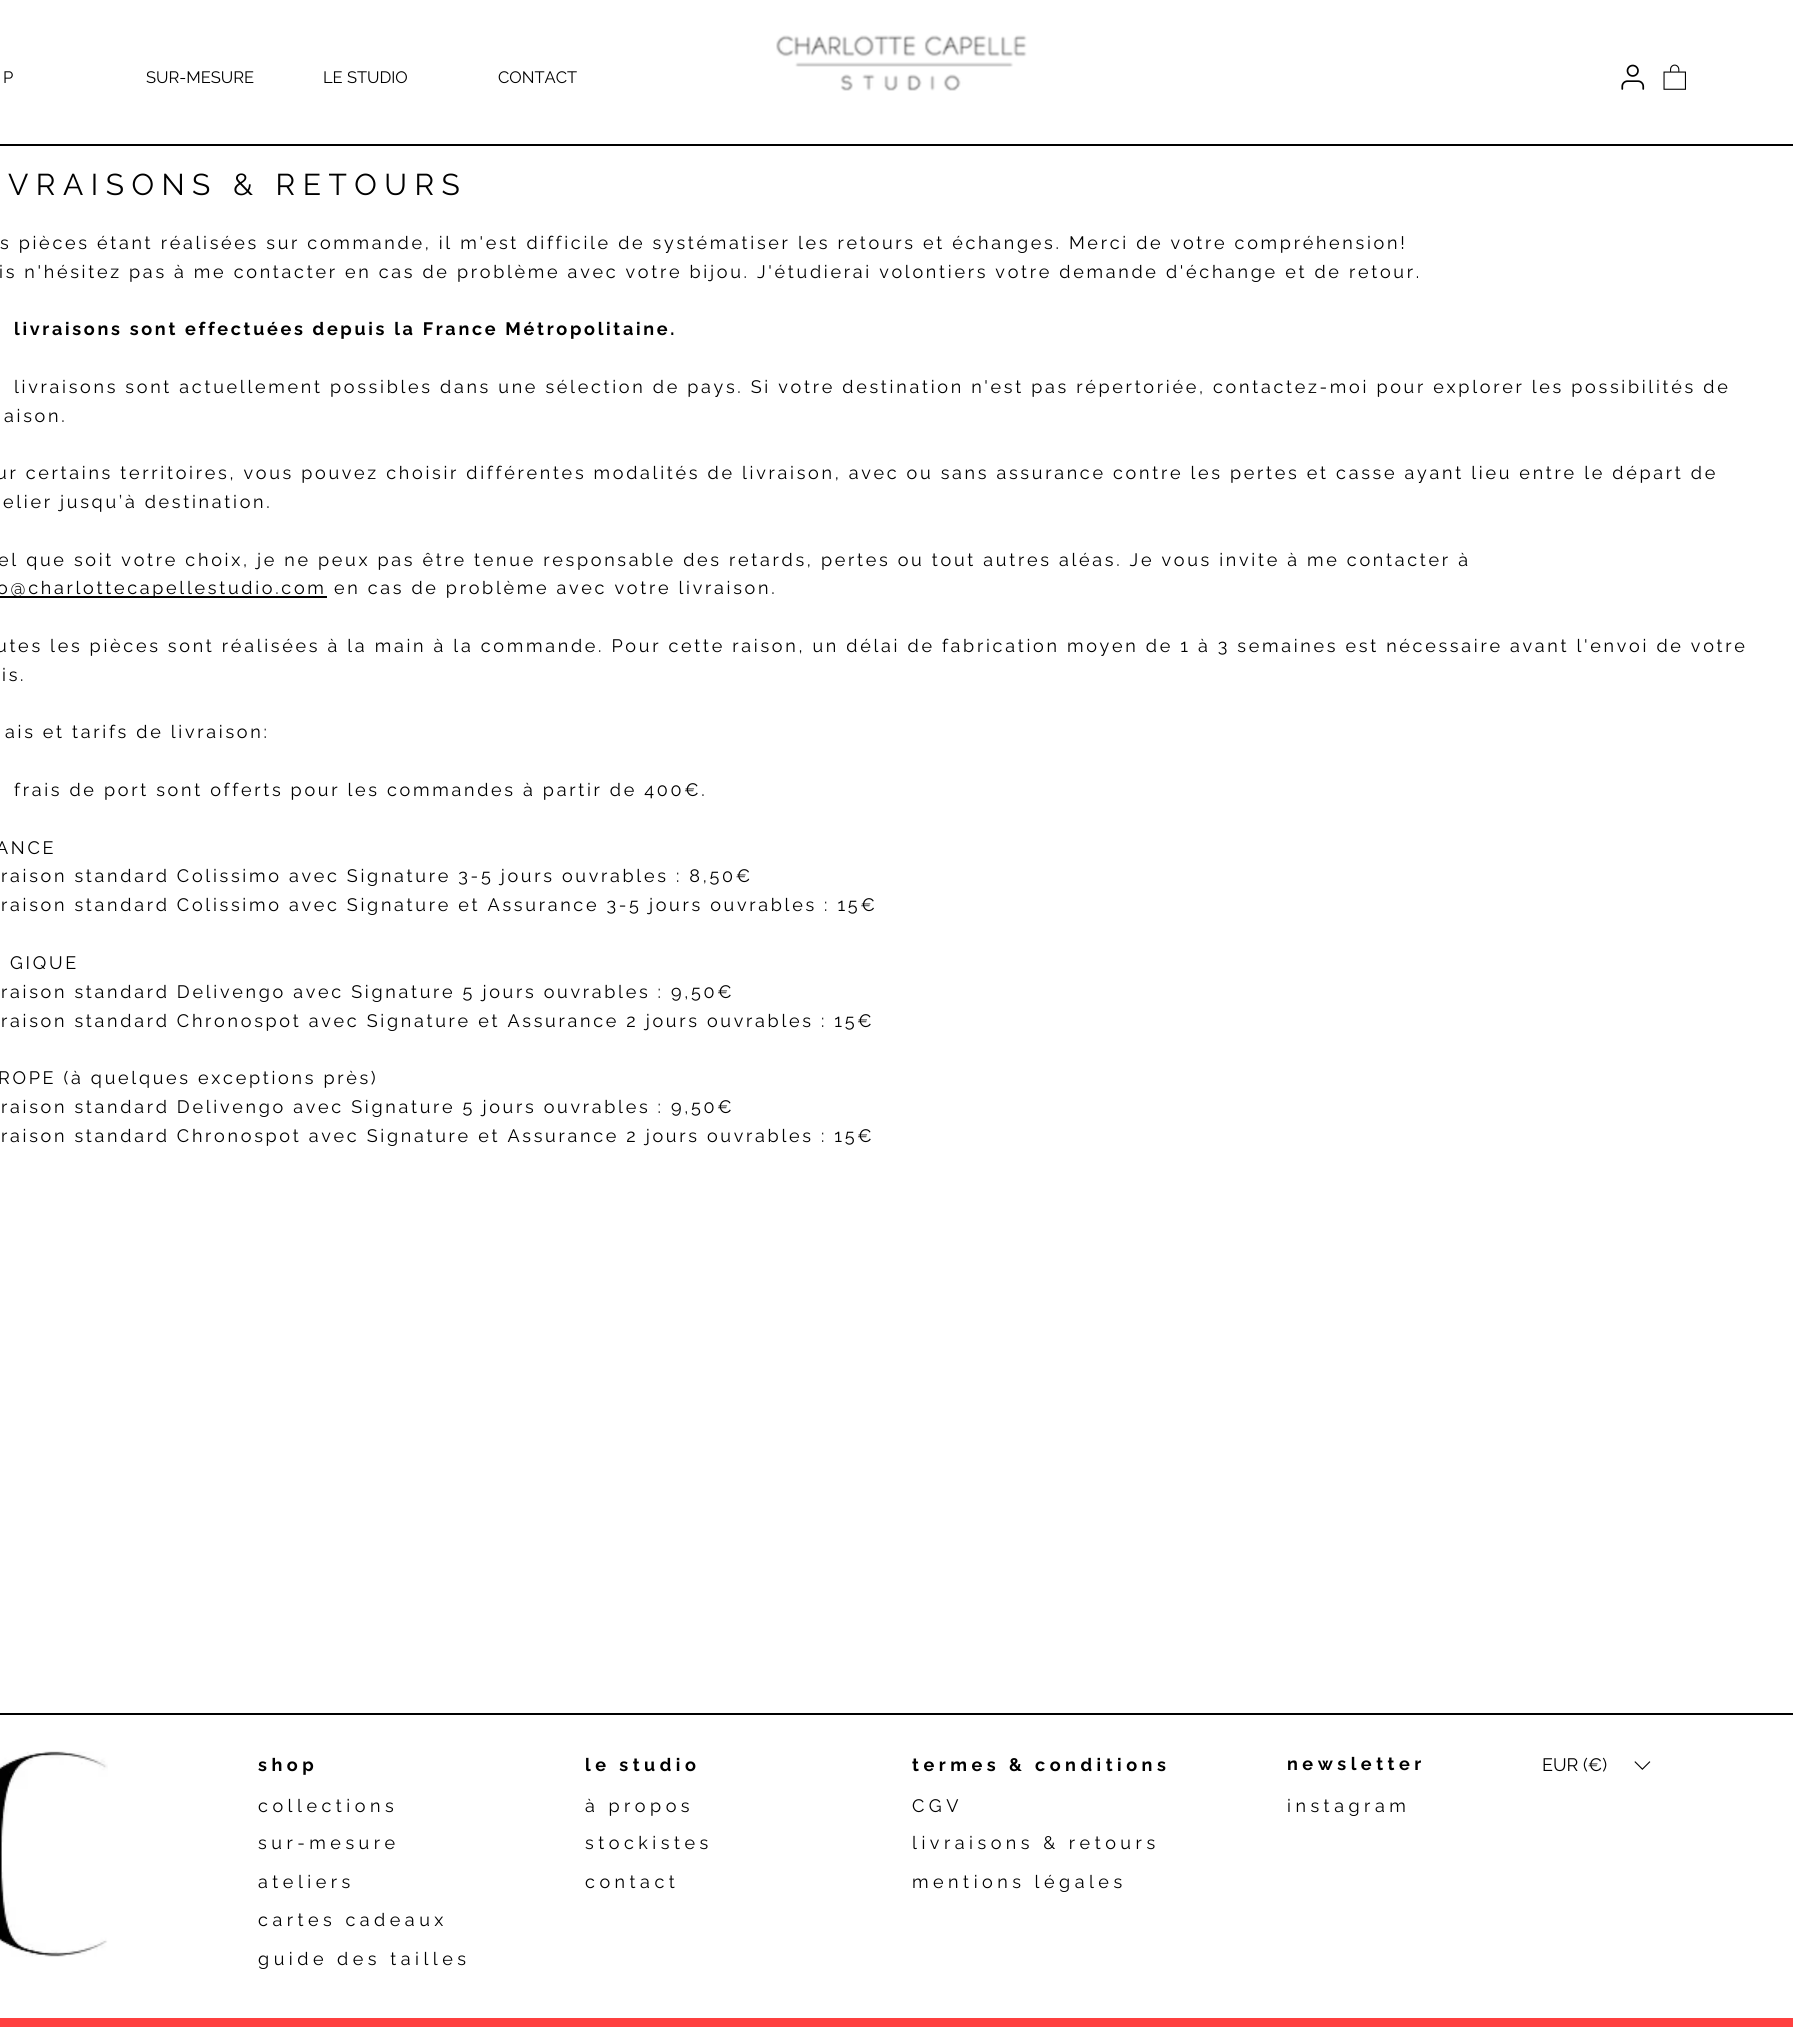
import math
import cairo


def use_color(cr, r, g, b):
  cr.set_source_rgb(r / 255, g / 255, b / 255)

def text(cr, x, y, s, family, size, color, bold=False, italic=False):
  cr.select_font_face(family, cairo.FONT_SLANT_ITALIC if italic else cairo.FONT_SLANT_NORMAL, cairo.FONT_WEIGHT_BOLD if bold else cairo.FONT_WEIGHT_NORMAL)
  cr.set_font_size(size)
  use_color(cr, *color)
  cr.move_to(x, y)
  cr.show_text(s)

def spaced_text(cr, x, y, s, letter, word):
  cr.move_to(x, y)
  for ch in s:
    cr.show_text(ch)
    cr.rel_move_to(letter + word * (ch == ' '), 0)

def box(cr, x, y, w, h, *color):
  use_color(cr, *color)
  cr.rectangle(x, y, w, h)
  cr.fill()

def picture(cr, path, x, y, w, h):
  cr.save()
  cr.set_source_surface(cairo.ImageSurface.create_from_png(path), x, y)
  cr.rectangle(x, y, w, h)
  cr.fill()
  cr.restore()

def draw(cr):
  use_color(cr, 255, 255, 255)
  cr.paint()
  picture(cr, "img_01.png", 776, 35, 251, 56)
  picture(cr, "img_02.png", 1621, 64, 24, 26)
  picture(cr, "img_03.png", 1663, 64, 23, 26)
  box(cr, 0, 144, 1793, 2, 0, 0, 0)
  box(cr, 0, 596, 327, 2, 0, 0, 0)
  box(cr, 0, 1713, 1793, 2, 0, 0, 0)
  picture(cr, "img_04.png", 0, 1751, 108, 206)
  picture(cr, "img_05.png", 1634, 1761, 17, 9)
  box(cr, 0, 2018, 1793, 9, 255, 64, 64)
  text(cr, 3, 83, "P", "Raleway", 16.5, (0, 0, 0))
  text(cr, 146, 83, "SUR-MESURE", "Raleway", 16.5, (0, 0, 0))
  text(cr, 323, 83, "LE STUDIO", "Raleway", 16.5, (0, 0, 0))
  text(cr, 498, 83, "CONTACT", "Raleway", 16.5, (0, 0, 0))
  cr.set_font_size(30)
  spaced_text(cr, 8, 195, "VRAISONS & RETOURS", 7.5, 0)
  cr.set_font_size(18)
  spaced_text(cr, 0, 249, "s pièces étant réalisées sur commande, il m'est difficile de systématiser les retours et échanges. Merci de votre compréhension!", 2.7, 0)
  spaced_text(cr, -1, 278, "is n'hésitez pas à me contacter en cas de problème avec votre bijou. J'étudierai volontiers votre demande d'échange et de retour.", 2.7, 0)
  cr.select_font_face("Raleway", cairo.FONT_SLANT_NORMAL, cairo.FONT_WEIGHT_BOLD)
  spaced_text(cr, 14, 335, "livraisons sont effectuées depuis la France Métropolitaine.", 2.7, 0)
  cr.select_font_face("Raleway")
  spaced_text(cr, 14, 393, "livraisons sont actuellement possibles dans une sélection de pays. Si votre destination n'est pas répertoriée, contactez-moi pour explorer les possibilités de", 2.7, 0)
  spaced_text(cr, 4, 422, "aison.", 2.7, 0)
  spaced_text(cr, -4, 479, "ur certains territoires, vous pouvez choisir différentes modalités de livraison, avec ou sans assurance contre les pertes et casse ayant lieu entre le départ de", 2.7, 0)
  spaced_text(cr, 3, 508, "elier jusqu’à destination.", 2.7, 0)
  spaced_text(cr, -2, 566, "el que soit votre choix, je ne peux pas être tenue responsable des retards, pertes ou tout autres aléas. Je vous invite à me contacter à", 2.7, 0)
  spaced_text(cr, -3, 594, "o@charlottecapellestudio.com en cas de problème avec votre livraison.", 2.7, 0)
  spaced_text(cr, -4, 652, "utes les pièces sont réalisées à la main à la commande. Pour cette raison, un délai de fabrication moyen de 1 à 3 semaines est nécessaire avant l'envoi de votre", 2.7, 0)
  spaced_text(cr, 2, 681, "is.", 2.7, 0)
  spaced_text(cr, 5, 738, "ais et tarifs de livraison:", 2.7, 0)
  spaced_text(cr, 14, 796, "frais de port sont offerts pour les commandes à partir de 400€.", 2.7, 0)
  spaced_text(cr, -4, 854, "ANCE", 2.7, 0)
  spaced_text(cr, 1, 882, "raison standard Colissimo avec Signature 3-5 jours ouvrables : 8,50€", 2.7, 0)
  spaced_text(cr, 1, 911, "raison standard Colissimo avec Signature et Assurance 3-5 jours ouvrables : 15€", 2.7, 0)
  spaced_text(cr, 10, 969, "GIQUE", 2.7, 0)
  spaced_text(cr, 1, 998, "raison standard Delivengo avec Signature 5 jours ouvrables : 9,50€", 2.7, 0)
  spaced_text(cr, 1, 1027, "raison standard Chronospot avec Signature et Assurance 2 jours ouvrables : 15€", 2.7, 0)
  spaced_text(cr, -2, 1084, "ROPE (à quelques exceptions près)", 2.7, 0)
  spaced_text(cr, 1, 1113, "raison standard Delivengo avec Signature 5 jours ouvrables : 9,50€", 2.7, 0)
  spaced_text(cr, 1, 1142, "raison standard Chronospot avec Signature et Assurance 2 jours ouvrables : 15€", 2.7, 0)
  cr.select_font_face("Raleway", cairo.FONT_SLANT_NORMAL, cairo.FONT_WEIGHT_BOLD)
  spaced_text(cr, 258, 1771, "shop", 4.5, 0)
  spaced_text(cr, 585, 1771, "le studio", 4.5, 0)
  spaced_text(cr, 912, 1771, "termes & conditions", 4.5, 0)
  spaced_text(cr, 1287, 1770, "newsletter", 4.5, 0)
  text(cr, 1542, 1771, "EUR (€)", "Raleway", 18, (0, 0, 0))
  spaced_text(cr, 258, 1812, "collections", 4.5, 0)
  spaced_text(cr, 585, 1812, "à propos", 4.5, 0)
  spaced_text(cr, 912, 1812, "CGV", 4.5, 0)
  spaced_text(cr, 1287, 1812, "instagram", 4.5, 0)
  spaced_text(cr, 258, 1849, "sur-mesure", 4.5, 0)
  spaced_text(cr, 585, 1849, "stockistes", 4.5, 0)
  spaced_text(cr, 912, 1849, "livraisons & retours", 4.5, 0)
  spaced_text(cr, 258, 1888, "ateliers", 4.5, 0)
  spaced_text(cr, 585, 1888, "contact", 4.5, 0)
  spaced_text(cr, 912, 1888, "mentions légales", 4.5, 0)
  spaced_text(cr, 258, 1926, "cartes cadeaux", 4.5, 0)
  spaced_text(cr, 258, 1965, "guide des tailles", 4.5, 0)


surface = cairo.ImageSurface(cairo.FORMAT_RGB24, 1793, 2027)
cr = cairo.Context(surface)
options = cairo.FontOptions()
options.set_hint_metrics(cairo.HINT_METRICS_OFF)
options.set_hint_style(cairo.HINT_STYLE_NONE)
cr.set_font_options(options)
cr.set_miter_limit(4)
draw(cr)
surface.write_to_png("out.png")
